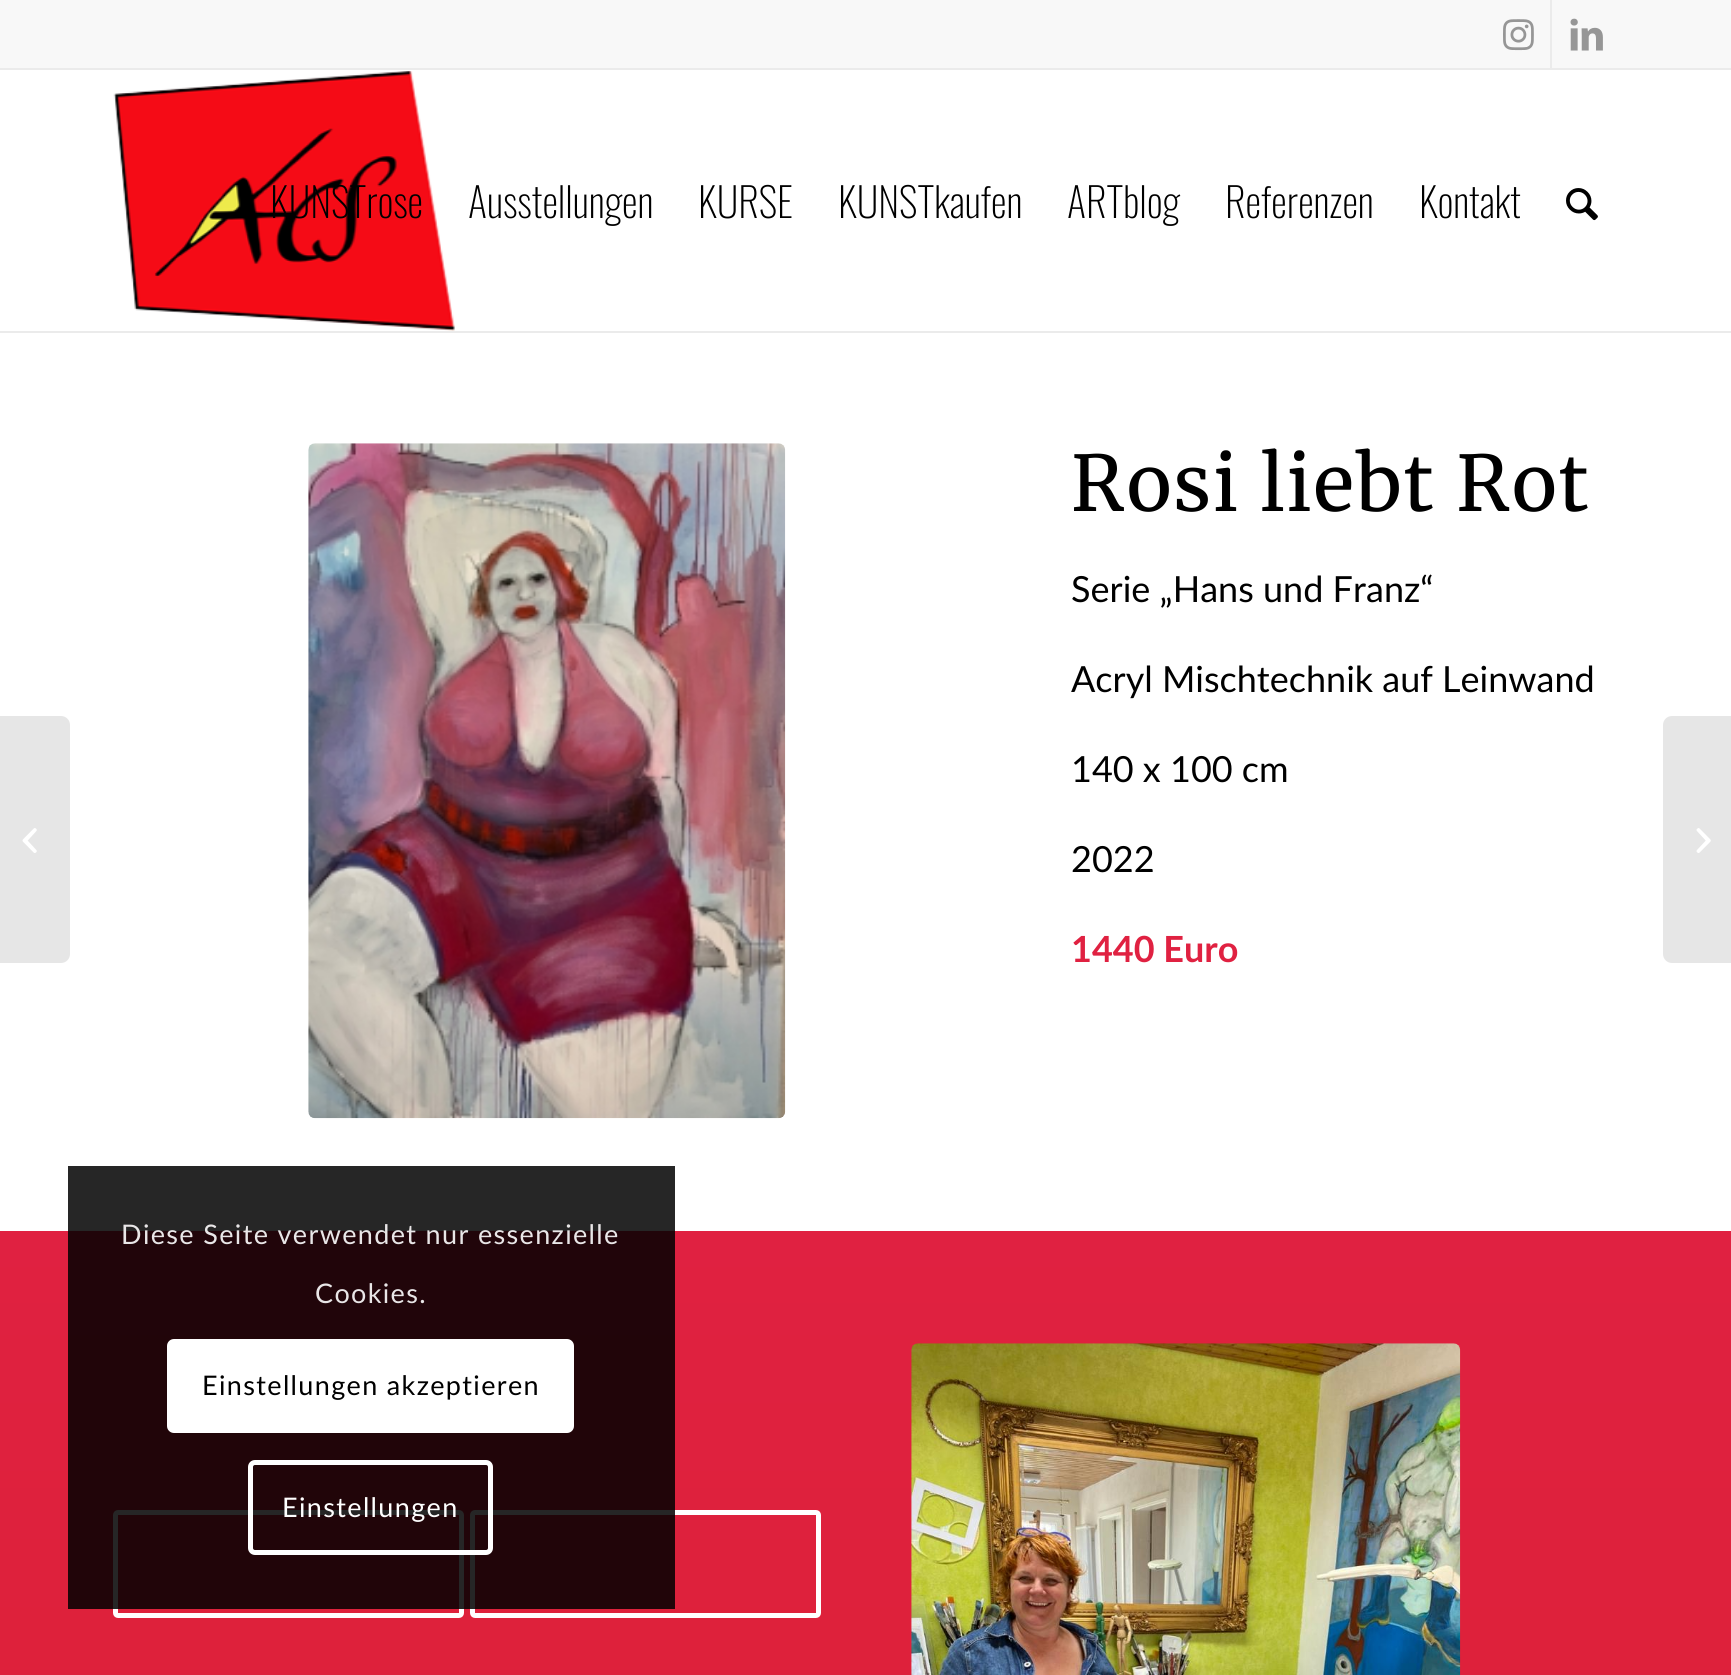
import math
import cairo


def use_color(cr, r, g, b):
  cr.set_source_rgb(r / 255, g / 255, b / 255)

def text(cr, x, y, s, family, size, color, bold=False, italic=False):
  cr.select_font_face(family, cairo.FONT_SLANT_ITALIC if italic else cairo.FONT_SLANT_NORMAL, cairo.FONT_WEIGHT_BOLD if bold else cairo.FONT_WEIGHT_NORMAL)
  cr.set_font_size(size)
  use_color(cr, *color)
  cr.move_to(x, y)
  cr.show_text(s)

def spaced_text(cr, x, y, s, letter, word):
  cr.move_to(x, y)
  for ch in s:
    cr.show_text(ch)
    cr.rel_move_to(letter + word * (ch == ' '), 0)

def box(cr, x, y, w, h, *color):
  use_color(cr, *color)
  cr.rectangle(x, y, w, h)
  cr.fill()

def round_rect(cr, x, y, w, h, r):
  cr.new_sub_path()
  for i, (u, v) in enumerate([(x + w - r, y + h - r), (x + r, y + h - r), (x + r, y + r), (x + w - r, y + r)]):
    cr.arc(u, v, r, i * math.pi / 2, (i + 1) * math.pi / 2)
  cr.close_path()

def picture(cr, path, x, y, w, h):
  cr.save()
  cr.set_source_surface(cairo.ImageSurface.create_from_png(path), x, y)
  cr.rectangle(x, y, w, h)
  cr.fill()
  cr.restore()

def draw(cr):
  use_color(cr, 255, 255, 255)
  cr.paint()
  box(cr, 0, 0, 1731, 68, 248, 248, 248)
  box(cr, 0, 68, 1731, 2, 235, 235, 235)
  box(cr, 1550, 0, 2, 68, 235, 235, 235)
  picture(cr, "img_01.png", 1503, 19, 31, 32)
  picture(cr, "img_02.png", 1570, 18, 33, 33)
  box(cr, 0, 331, 1731, 2, 235, 235, 235)
  picture(cr, "img_03.png", 113, 70, 342, 261)
  picture(cr, "img_04.png", 1566, 188, 32, 33)
  use_color(cr, 230, 230, 230)
  cr.new_path()
  cr.move_to(0, 716)
  cr.line_to(61, 716)
  cr.curve_to(66, 716, 70, 720, 70, 725)
  cr.line_to(70, 954)
  cr.curve_to(70, 959, 66, 963, 61, 963)
  cr.line_to(0, 963)
  cr.close_path()
  cr.fill()
  picture(cr, "img_05.png", 22, 828, 15, 25)
  picture(cr, "img_06.png", 308, 443, 478, 676)
  gradient = cairo.LinearGradient(866, 1231, 866, 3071)
  gradient.add_color_stop_rgba(0, 0.878, 0.129, 0.255, 1)
  gradient.add_color_stop_rgba(1, 0.839, 0.125, 0.149, 1)
  cr.set_source(gradient)
  cr.rectangle(0, 1231, 1731, 444)
  cr.fill()
  round_rect(cr, 115.5, 1512.5, 346, 103, 2.5)
  use_color(cr, 255, 255, 255)
  cr.set_line_width(5)
  cr.stroke()
  round_rect(cr, 472.5, 1512.5, 346, 103, 2.5)
  cr.stroke()
  picture(cr, "img_07.png", 911, 1343, 550, 332)
  use_color(cr, 230, 230, 230)
  cr.new_path()
  cr.move_to(1672, 716)
  cr.line_to(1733, 716)
  cr.line_to(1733, 963)
  cr.line_to(1672, 963)
  cr.curve_to(1667, 963, 1663, 959, 1663, 954)
  cr.line_to(1663, 725)
  cr.curve_to(1663, 720, 1667, 716, 1672, 716)
  cr.close_path()
  cr.fill()
  picture(cr, "img_08.png", 1696, 828, 15, 25)
  cr.set_source_rgba(0, 0, 0, 0.85)
  cr.rectangle(68, 1166, 607, 443)
  cr.fill()
  use_color(cr, 255, 255, 255)
  round_rect(cr, 167, 1339, 407, 94, 7)
  cr.fill()
  round_rect(cr, 250.5, 1462.5, 240, 90, 4.5)
  cr.stroke()
  text(cr, 270, 218, "KUNSTrose", "Oswald ExtraLight", 40.5, (0, 0, 0))
  text(cr, 468, 218, "Ausstellungen", "Oswald ExtraLight", 40.5, (0, 0, 0))
  text(cr, 698, 218, "KURSE", "Oswald ExtraLight", 40.5, (0, 0, 0))
  text(cr, 838, 218, "KUNSTkaufen", "Oswald ExtraLight", 40.5, (0, 0, 0))
  text(cr, 1067, 218, "ARTblog", "Oswald ExtraLight", 40.5, (0, 0, 0))
  text(cr, 1225, 218, "Referenzen", "Oswald ExtraLight", 40.5, (0, 0, 0))
  text(cr, 1419, 218, "Kontakt", "Oswald ExtraLight", 40.5, (0, 0, 0))
  cr.select_font_face("Merriweather")
  cr.set_font_size(76.5)
  spaced_text(cr, 1071, 511, "Rosi liebt Rot", 2.25, 0)
  text(cr, 1071, 602, "Serie „Hans und Franz“", "Lato", 36, (0, 0, 0))
  text(cr, 1071, 692, "Acryl Mischtechnik auf Leinwand", "Lato", 36, (0, 0, 0))
  text(cr, 1071, 782, "140 x 100 cm", "Lato", 36, (0, 0, 0))
  text(cr, 1071, 872, "2022", "Lato", 36, (0, 0, 0))
  text(cr, 1071, 962, "1440 Euro", "Lato", 36, (224, 33, 65), bold=True)
  cr.select_font_face("Lato")
  cr.set_font_size(27)
  use_color(cr, 233, 230, 231)
  spaced_text(cr, 121, 1244, "Diese Seite verwendet nur essenzielle", 1.35, 0)
  spaced_text(cr, 315, 1303, "Cookies.", 1.35, 0)
  use_color(cr, 0, 0, 0)
  spaced_text(cr, 202, 1395, "Einstellungen akzeptieren", 1.35, 0)
  use_color(cr, 255, 255, 255)
  spaced_text(cr, 282, 1517, "Einstellungen", 1.35, 0)


surface = cairo.ImageSurface(cairo.FORMAT_RGB24, 1731, 1675)
cr = cairo.Context(surface)
options = cairo.FontOptions()
options.set_hint_metrics(cairo.HINT_METRICS_OFF)
options.set_hint_style(cairo.HINT_STYLE_NONE)
cr.set_font_options(options)
cr.set_miter_limit(4)
draw(cr)
surface.write_to_png("out.png")
